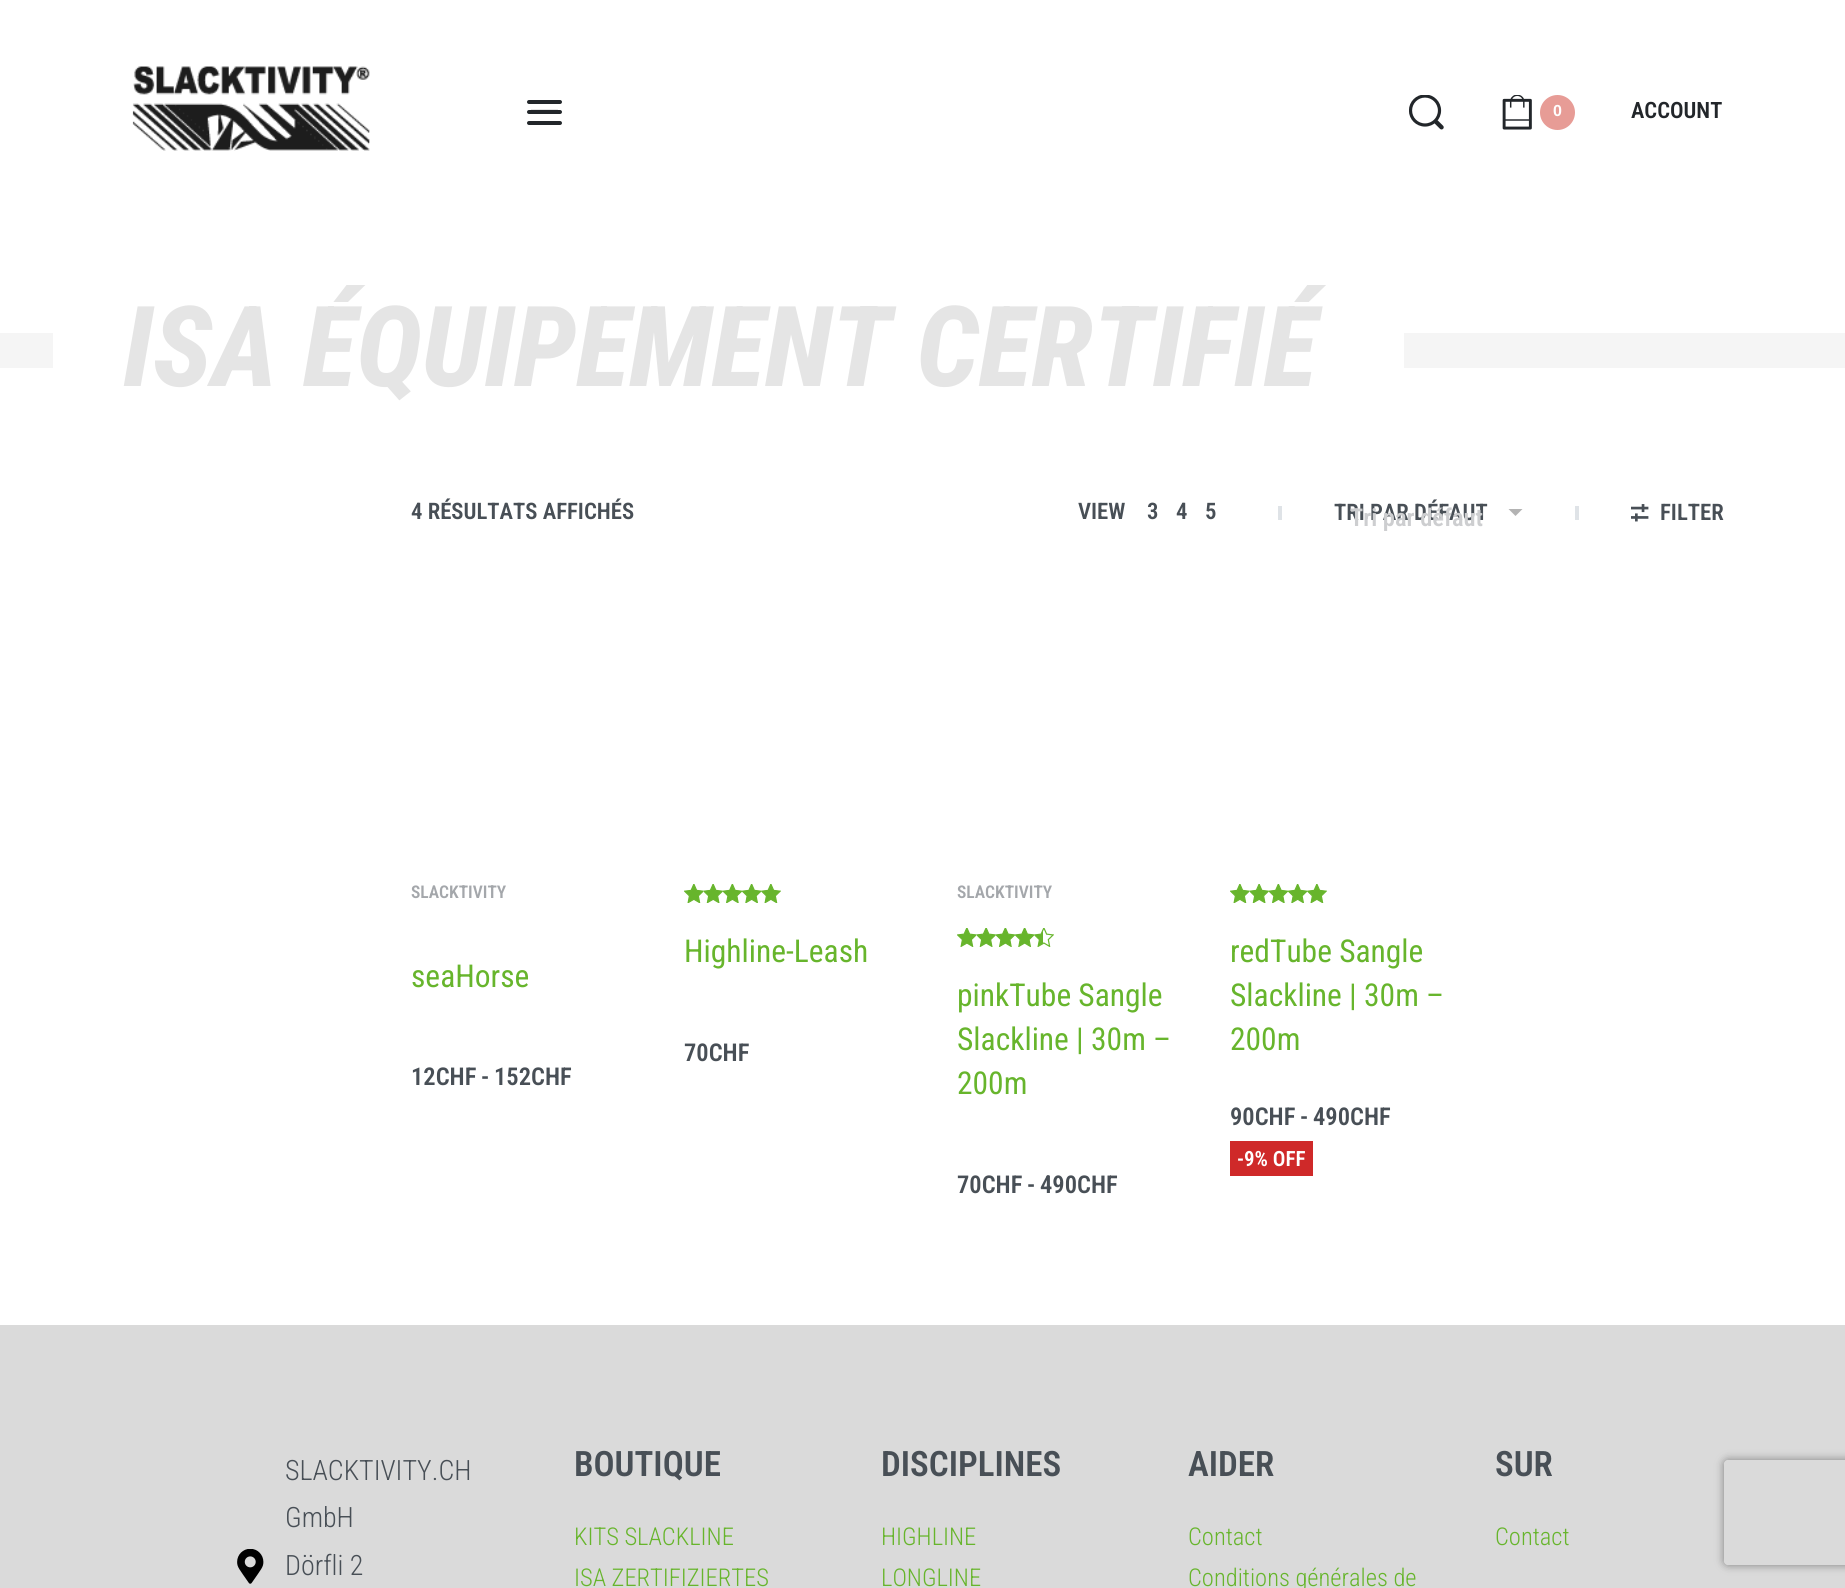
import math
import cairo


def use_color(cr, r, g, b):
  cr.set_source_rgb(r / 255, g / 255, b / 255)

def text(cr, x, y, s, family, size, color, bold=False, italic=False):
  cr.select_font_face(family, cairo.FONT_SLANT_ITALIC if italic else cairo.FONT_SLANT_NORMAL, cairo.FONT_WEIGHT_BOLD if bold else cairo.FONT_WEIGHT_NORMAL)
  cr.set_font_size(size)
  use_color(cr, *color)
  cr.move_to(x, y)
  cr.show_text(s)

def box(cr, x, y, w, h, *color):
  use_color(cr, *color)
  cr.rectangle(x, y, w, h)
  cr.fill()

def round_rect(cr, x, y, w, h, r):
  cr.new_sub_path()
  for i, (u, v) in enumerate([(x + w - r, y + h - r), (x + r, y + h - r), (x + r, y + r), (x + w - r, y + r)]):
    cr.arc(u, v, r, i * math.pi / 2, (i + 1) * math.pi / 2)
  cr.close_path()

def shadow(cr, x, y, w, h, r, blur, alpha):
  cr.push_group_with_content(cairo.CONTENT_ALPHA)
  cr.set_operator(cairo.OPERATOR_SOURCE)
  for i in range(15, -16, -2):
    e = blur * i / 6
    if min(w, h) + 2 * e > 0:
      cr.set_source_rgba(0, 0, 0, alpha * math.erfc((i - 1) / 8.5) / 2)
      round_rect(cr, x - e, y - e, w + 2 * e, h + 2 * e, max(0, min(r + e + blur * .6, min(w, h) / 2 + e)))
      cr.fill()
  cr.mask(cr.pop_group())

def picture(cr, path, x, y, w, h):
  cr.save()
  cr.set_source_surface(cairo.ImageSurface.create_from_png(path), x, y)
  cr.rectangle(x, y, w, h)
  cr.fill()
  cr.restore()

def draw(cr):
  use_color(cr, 255, 255, 255)
  cr.paint()
  picture(cr, "img_01.png", 132, 66, 238, 85)
  use_color(cr, 34, 38, 42)
  round_rect(cr, 527, 100, 35, 4, 2)
  cr.fill()
  round_rect(cr, 527, 110, 35, 4, 2)
  cr.fill()
  round_rect(cr, 527, 121, 35, 4, 2)
  cr.fill()
  cr.save()
  cr.new_path()
  cr.move_to(544, 96)
  cr.line_to(560, 112)
  cr.line_to(544, 127.5)
  cr.line_to(528.5, 112)
  cr.close_path()
  cr.clip()
  cr.new_path()
  cr.move_to(531, 111.5)
  cr.line_to(560, 111.5)
  cr.close_path()
  cr.set_line_width(3.3)
  cr.set_line_cap(cairo.LINE_CAP_SQUARE)
  cr.stroke()
  cr.restore()
  picture(cr, "img_02.png", 1409, 95, 35, 35)
  picture(cr, "img_03.png", 1502, 95, 30, 35)
  use_color(cr, 231, 156, 150)
  cr.arc(1557.5, 112.5, 17.5, 0, 2 * math.pi)
  cr.fill()
  box(cr, 0, 333, 53, 35, 245, 245, 245)
  box(cr, 1404, 333, 441, 35, 245, 245, 245)
  box(cr, 1278, 506, 4, 14, 223, 227, 231)
  use_color(cr, 179, 179, 179)
  cr.new_path()
  cr.move_to(1508.5, 509)
  cr.line_to(1522.5, 509)
  cr.line_to(1515.5, 516)
  cr.close_path()
  cr.fill()
  box(cr, 1575, 506, 4, 14, 223, 227, 231)
  picture(cr, "img_04.png", 1631, 504, 18, 18)
  picture(cr, "img_05.png", 684, 884, 20, 19)
  picture(cr, "img_06.png", 704, 884, 19, 19)
  picture(cr, "img_07.png", 723, 884, 19, 19)
  picture(cr, "img_08.png", 742, 884, 19, 19)
  picture(cr, "img_05.png", 761, 884, 20, 19)
  picture(cr, "img_09.png", 685, 884, 17, 19)
  picture(cr, "img_10.png", 705, 884, 17, 19)
  picture(cr, "img_11.png", 724, 885, 17, 18)
  picture(cr, "img_12.png", 743, 885, 17, 18)
  picture(cr, "img_09.png", 762, 884, 17, 19)
  picture(cr, "img_13.png", 957, 928, 20, 19)
  picture(cr, "img_14.png", 977, 928, 19, 19)
  picture(cr, "img_15.png", 996, 928, 19, 19)
  picture(cr, "img_16.png", 1015, 928, 19, 19)
  picture(cr, "img_13.png", 1034, 928, 20, 19)
  picture(cr, "img_17.png", 958, 928, 18, 18)
  picture(cr, "img_18.png", 977, 928, 18, 18)
  picture(cr, "img_19.png", 996, 929, 19, 18)
  picture(cr, "img_20.png", 1015, 929, 19, 18)
  picture(cr, "img_21.png", 1035, 930, 8, 16)
  picture(cr, "img_05.png", 1230, 884, 20, 19)
  picture(cr, "img_06.png", 1250, 884, 19, 19)
  picture(cr, "img_07.png", 1269, 884, 19, 19)
  picture(cr, "img_08.png", 1288, 884, 19, 19)
  picture(cr, "img_05.png", 1307, 884, 20, 19)
  picture(cr, "img_09.png", 1231, 884, 17, 19)
  picture(cr, "img_10.png", 1251, 884, 17, 19)
  picture(cr, "img_11.png", 1270, 885, 17, 18)
  picture(cr, "img_12.png", 1289, 885, 17, 18)
  picture(cr, "img_09.png", 1308, 884, 17, 19)
  box(cr, 1230, 1141, 83, 35, 207, 41, 41)
  box(cr, 0, 1325, 1845, 263, 218, 218, 218)
  picture(cr, "img_22.png", 237, 1549, 27, 35)
  cr.save()
  cr.set_fill_rule(cairo.FILL_RULE_EVEN_ODD)
  cr.new_path()
  cr.move_to(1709, 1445)
  cr.line_to(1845, 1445)
  cr.line_to(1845, 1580)
  cr.line_to(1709, 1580)
  cr.close_path()
  cr.move_to(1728, 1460)
  cr.line_to(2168, 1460)
  cr.curve_to(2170, 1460, 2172, 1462, 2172, 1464)
  cr.line_to(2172, 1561)
  cr.curve_to(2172, 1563, 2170, 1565, 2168, 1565)
  cr.line_to(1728, 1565)
  cr.curve_to(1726, 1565, 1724, 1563, 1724, 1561)
  cr.line_to(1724, 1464)
  cr.curve_to(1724, 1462, 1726, 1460, 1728, 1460)
  cr.close_path()
  cr.clip()
  use_color(cr, 128, 128, 128)
  shadow(cr, 1724, 1460, 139, 105, 4, 4.5, 1)
  cr.restore()
  text(cr, 1553, 116, "0", "Liberation Sans", 16, (255, 255, 255), bold=True)
  text(cr, 1631, 118, "ACCOUNT", "Roboto Condensed SemiBold", 22.5, (34, 38, 42))
  text(cr, 123, 386, "ISA ÉQUIPEMENT CERTIFIÉ", "Roboto Condensed ExtraBold", 112, (229, 229, 229), italic=True)
  text(cr, 411, 519, "4 RÉSULTATS AFFICHÉS", "Roboto Condensed SemiBold", 22.75, (72, 79, 86))
  text(cr, 1078, 519, "VIEW", "Roboto Condensed SemiBold", 22.75, (72, 79, 86))
  text(cr, 1147, 519, "3", "Roboto Condensed SemiBold", 22.75, (72, 79, 86))
  text(cr, 1176, 519, "4", "Roboto Condensed SemiBold", 22.75, (72, 79, 86))
  text(cr, 1205, 519, "5", "Roboto Condensed SemiBold", 22.75, (72, 79, 86))
  text(cr, 1334, 520, "TRI PAR DÉFAUT", "Roboto Condensed SemiBold", 22.75, (72, 79, 86))
  text(cr, 1350, 526, "Tri par défaut", "Roboto Condensed SemiBold", 24.5, (205, 206, 208))
  text(cr, 1660, 520, "FILTER", "Roboto Condensed SemiBold", 22.75, (72, 79, 86))
  text(cr, 411, 898, "SLACKTIVITY", "Roboto Condensed SemiBold", 17.5, (164, 167, 171))
  text(cr, 411, 987, "seaHorse", "Roboto Condensed", 31.5, (103, 181, 44))
  text(cr, 411, 1085, "12CHF", "Roboto Condensed SemiBold", 24.5, (72, 79, 86))
  text(cr, 481, 1085, "-", "Roboto Condensed SemiBold", 24.5, (72, 79, 86))
  text(cr, 494, 1085, "152CHF", "Roboto Condensed SemiBold", 24.5, (72, 79, 86))
  text(cr, 684, 962, "Highline-Leash", "Roboto Condensed", 31.5, (103, 181, 44))
  text(cr, 684, 1061, "70CHF", "Roboto Condensed SemiBold", 24.5, (72, 79, 86))
  text(cr, 957, 898, "SLACKTIVITY", "Roboto Condensed SemiBold", 17.5, (164, 167, 171))
  text(cr, 957, 1006, "pinkTube Sangle", "Roboto Condensed", 31.5, (103, 181, 44))
  text(cr, 957, 1050, "Slackline | 30m –", "Roboto Condensed", 31.5, (103, 181, 44))
  text(cr, 957, 1094, "200m", "Roboto Condensed", 31.5, (103, 181, 44))
  text(cr, 957, 1193, "70CHF", "Roboto Condensed SemiBold", 24.5, (72, 79, 86))
  text(cr, 1027, 1193, "-", "Roboto Condensed SemiBold", 24.5, (72, 79, 86))
  text(cr, 1040, 1193, "490CHF", "Roboto Condensed SemiBold", 24.5, (72, 79, 86))
  text(cr, 1230, 962, "redTube Sangle", "Roboto Condensed", 31.5, (103, 181, 44))
  text(cr, 1230, 1006, "Slackline | 30m –", "Roboto Condensed", 31.5, (103, 181, 44))
  text(cr, 1230, 1050, "200m", "Roboto Condensed", 31.5, (103, 181, 44))
  text(cr, 1230, 1125, "90CHF", "Roboto Condensed SemiBold", 24.5, (72, 79, 86))
  text(cr, 1300, 1125, "-", "Roboto Condensed SemiBold", 24.5, (72, 79, 86))
  text(cr, 1313, 1125, "490CHF", "Roboto Condensed SemiBold", 24.5, (72, 79, 86))
  text(cr, 1237, 1166, "-9% OFF", "Roboto Condensed SemiBold", 21, (255, 255, 255))
  text(cr, 285, 1480, "SLACKTIVITY.CH", "Roboto Condensed Light", 28, (72, 79, 86))
  text(cr, 285, 1527, "GmbH", "Roboto Condensed Light", 28, (72, 79, 86))
  text(cr, 285, 1575, "Dörfli 2", "Roboto Condensed Light", 28, (72, 79, 86))
  text(cr, 574, 1476, "BOUTIQUE", "Roboto Condensed SemiBold", 35, (72, 79, 86))
  text(cr, 574, 1545, "KITS SLACKLINE", "Roboto Condensed Light", 24.5, (103, 181, 44))
  text(cr, 574, 1586, "ISA ZERTIFIZIERTES", "Roboto Condensed Light", 24.5, (103, 181, 44))
  text(cr, 881, 1476, "DISCIPLINES", "Roboto Condensed SemiBold", 35, (72, 79, 86))
  text(cr, 881, 1545, "HIGHLINE", "Roboto Condensed Light", 24.5, (103, 181, 44))
  text(cr, 881, 1586, "LONGLINE", "Roboto Condensed Light", 24.5, (103, 181, 44))
  text(cr, 1188, 1476, "AIDER", "Roboto Condensed SemiBold", 35, (72, 79, 86))
  text(cr, 1188, 1545, "Contact", "Roboto Condensed Light", 24.5, (103, 181, 44))
  text(cr, 1188, 1586, "Conditions générales de", "Roboto Condensed Light", 24.5, (103, 181, 44))
  text(cr, 1495, 1476, "SUR", "Roboto Condensed SemiBold", 35, (72, 79, 86))
  text(cr, 1495, 1545, "Contact", "Roboto Condensed Light", 24.5, (103, 181, 44))


surface = cairo.ImageSurface(cairo.FORMAT_RGB24, 1845, 1588)
cr = cairo.Context(surface)
options = cairo.FontOptions()
options.set_hint_metrics(cairo.HINT_METRICS_OFF)
options.set_hint_style(cairo.HINT_STYLE_NONE)
cr.set_font_options(options)
cr.set_miter_limit(4)
draw(cr)
surface.write_to_png("out.png")
